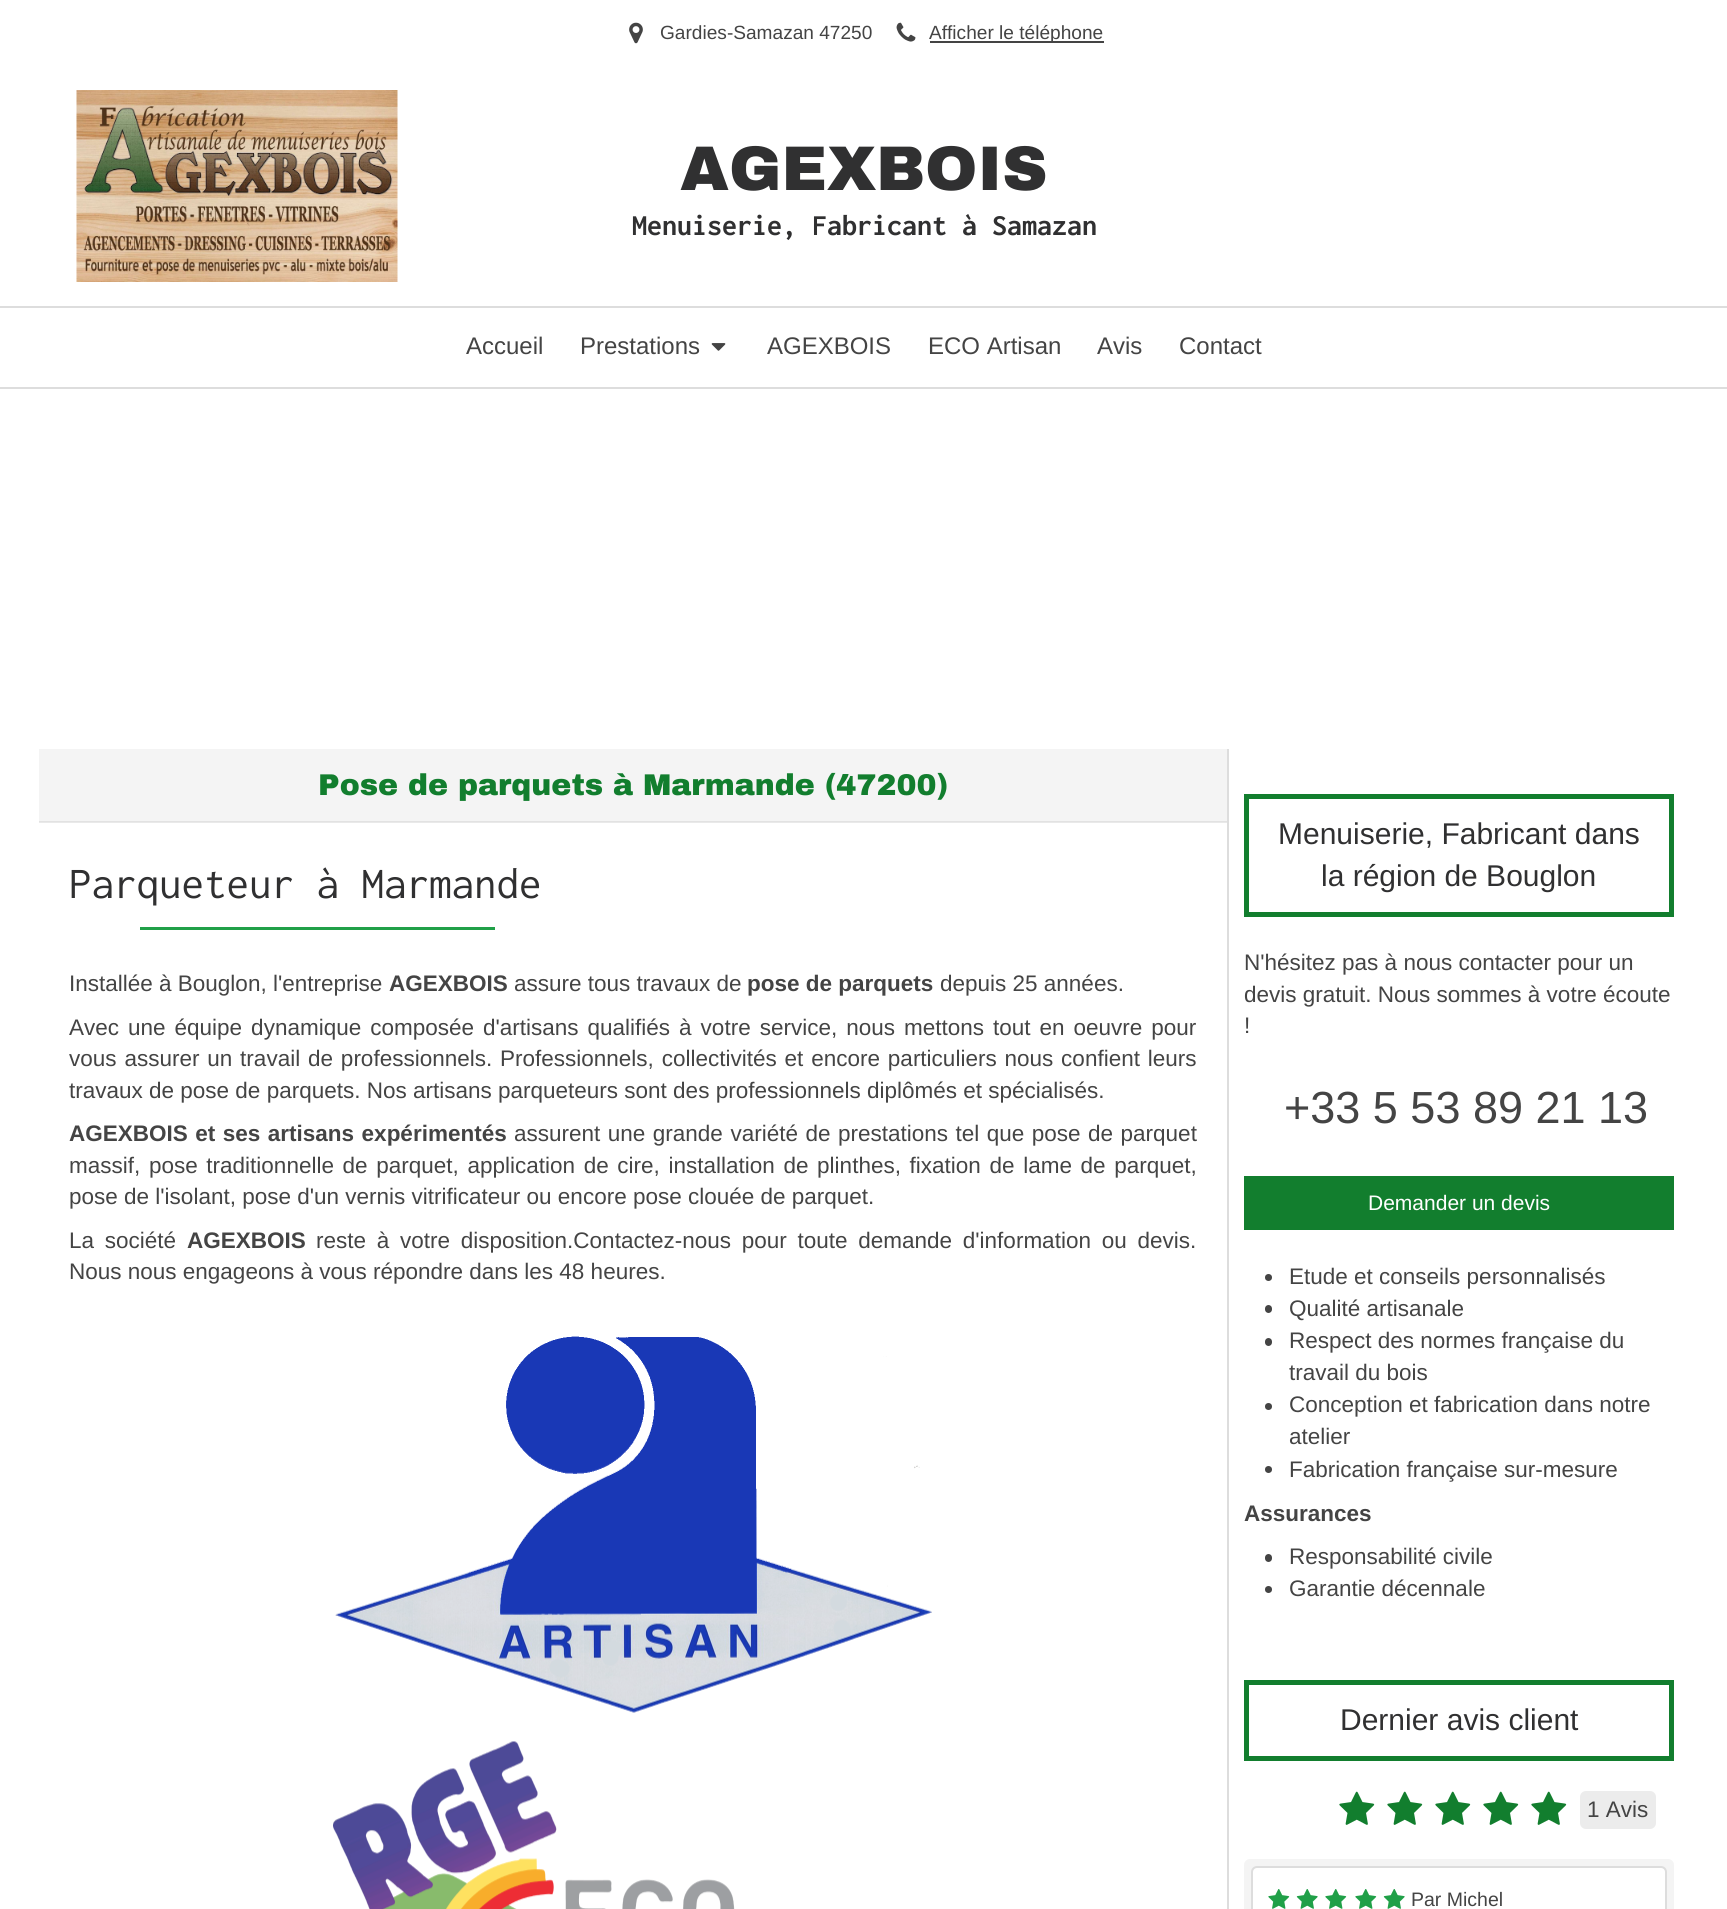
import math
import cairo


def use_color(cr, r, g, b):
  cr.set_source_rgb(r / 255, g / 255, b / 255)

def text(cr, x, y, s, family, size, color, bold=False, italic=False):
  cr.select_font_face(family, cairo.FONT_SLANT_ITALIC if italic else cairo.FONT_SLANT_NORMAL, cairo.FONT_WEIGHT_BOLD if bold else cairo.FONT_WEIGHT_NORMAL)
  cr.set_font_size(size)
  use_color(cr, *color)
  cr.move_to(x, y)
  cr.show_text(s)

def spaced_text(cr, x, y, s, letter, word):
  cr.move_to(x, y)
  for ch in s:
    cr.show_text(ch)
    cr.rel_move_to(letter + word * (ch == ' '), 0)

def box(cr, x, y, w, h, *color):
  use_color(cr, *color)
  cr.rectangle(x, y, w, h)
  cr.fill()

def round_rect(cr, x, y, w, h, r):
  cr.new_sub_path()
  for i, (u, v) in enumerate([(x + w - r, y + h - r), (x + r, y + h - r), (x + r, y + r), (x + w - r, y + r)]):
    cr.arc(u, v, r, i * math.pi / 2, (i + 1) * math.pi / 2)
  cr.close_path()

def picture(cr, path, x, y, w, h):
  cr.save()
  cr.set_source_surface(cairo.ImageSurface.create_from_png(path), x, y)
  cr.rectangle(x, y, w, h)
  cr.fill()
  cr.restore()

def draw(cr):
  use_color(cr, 255, 255, 255)
  cr.paint()
  box(cr, 39, 822, 1188, 1, 233, 233, 233)
  picture(cr, "img_01.png", 629, 22, 14, 22)
  picture(cr, "img_02.png", 896, 22, 20, 20)
  box(cr, 930, 41, 174, 2, 68, 68, 68)
  picture(cr, "img_03.png", 76, 90, 322, 192)
  box(cr, 0, 306, 1727, 2, 221, 221, 221)
  box(cr, 0, 387, 1727, 2, 221, 221, 221)
  picture(cr, "img_04.png", 711, 343, 15, 8)
  box(cr, 39, 749, 1188, 72, 244, 244, 244)
  box(cr, 39, 821, 1188, 1, 226, 226, 226)
  box(cr, 140, 927, 355, 3, 32, 160, 72)
  picture(cr, "img_05.png", 335, 1336, 597, 377)
  picture(cr, "img_06.png", 333, 1741, 402, 168)
  box(cr, 1227, 749, 2, 1160, 221, 221, 221)
  cr.rectangle(1246.5, 796.5, 425, 118)
  use_color(cr, 18, 126, 46)
  cr.set_line_width(5)
  cr.stroke()
  box(cr, 1244, 1176, 430, 54, 18, 126, 46)
  use_color(cr, 68, 68, 68)
  cr.arc(1268.5, 1277.5, 3.5, 0, 2 * math.pi)
  cr.fill()
  round_rect(cr, 1265, 1305, 7, 8, 3.5)
  cr.fill()
  round_rect(cr, 1265, 1338, 7, 8, 3.5)
  cr.fill()
  cr.arc(1268.5, 1406.5, 3.5, 0, 2 * math.pi)
  cr.fill()
  cr.arc(1268.5, 1469.5, 3.5, 0, 2 * math.pi)
  cr.fill()
  round_rect(cr, 1265, 1554, 7, 8, 3.5)
  cr.fill()
  cr.arc(1268.5, 1589.5, 3.5, 0, 2 * math.pi)
  cr.fill()
  cr.rectangle(1246.5, 1682.5, 425, 76)
  use_color(cr, 18, 126, 46)
  cr.stroke()
  picture(cr, "img_07.png", 1339, 1791, 36, 34)
  picture(cr, "img_07.png", 1387, 1791, 36, 34)
  picture(cr, "img_07.png", 1435, 1791, 36, 34)
  picture(cr, "img_07.png", 1483, 1791, 36, 34)
  picture(cr, "img_07.png", 1531, 1791, 36, 34)
  use_color(cr, 236, 236, 236)
  round_rect(cr, 1580, 1791, 76, 38, 6)
  cr.fill()
  use_color(cr, 244, 244, 244)
  round_rect(cr, 1244, 1859, 430, 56, 6)
  cr.fill()
  use_color(cr, 255, 255, 255)
  round_rect(cr, 1252, 1867, 414, 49, 5)
  cr.fill_preserve()
  use_color(cr, 221, 221, 221)
  cr.set_line_width(2)
  cr.stroke()
  picture(cr, "img_08.png", 1268, 1889, 22, 20)
  picture(cr, "img_09.png", 1296, 1889, 22, 20)
  picture(cr, "img_08.png", 1325, 1889, 22, 20)
  picture(cr, "img_08.png", 1355, 1889, 22, 20)
  picture(cr, "img_09.png", 1383, 1889, 22, 20)
  text(cr, 660, 39, "Gardies-Samazan 47250", "Liberation Sans", 19.1, (68, 68, 68))
  text(cr, 929, 39, "Afficher le téléphone", "Liberation Sans", 19.1, (68, 68, 68))
  text(cr, 680, 190, "AGEXBOIS", "Archivo Black Black", 63, (48, 48, 49))
  text(cr, 632, 235, "Menuiserie, Fabricant à Samazan", "Inconsolata", 30, (48, 48, 49), bold=True)
  text(cr, 466, 354, "Accueil", "Liberation Sans", 24, (68, 68, 68))
  text(cr, 580, 354, "Prestations", "Liberation Sans", 24, (68, 68, 68))
  text(cr, 767, 354, "AGEXBOIS", "Liberation Sans", 24, (68, 68, 68))
  text(cr, 928, 354, "ECO Artisan", "Liberation Sans", 24, (68, 68, 68))
  text(cr, 1097, 354, "Avis", "Liberation Sans", 24, (68, 68, 68))
  text(cr, 1179, 354, "Contact", "Liberation Sans", 24, (68, 68, 68))
  text(cr, 318, 795, "Pose de parquets à Marmande (47200)", "Archivo Black Black", 30, (18, 126, 46))
  text(cr, 69, 898, "Parqueteur à Marmande", "Inconsolata", 45, (48, 48, 49))
  text(cr, 69, 991, "Installée à Bouglon, l'entreprise", "Liberation Sans", 22.5, (68, 68, 68))
  text(cr, 389, 991, "AGEXBOIS", "Liberation Sans", 22.5, (68, 68, 68), bold=True)
  text(cr, 514, 991, "assure tous travaux de", "Liberation Sans", 22.5, (68, 68, 68))
  text(cr, 747, 991, "pose de parquets", "Liberation Sans", 22.5, (68, 68, 68), bold=True)
  text(cr, 940, 991, "depuis 25 années.", "Liberation Sans", 22.5, (68, 68, 68))
  spaced_text(cr, 69, 1035, "Avec une équipe dynamique composée d'artisans qualifiés à votre service, nous mettons tout en oeuvre pour", 0, 2.75)
  spaced_text(cr, 69, 1066, "vous assurer un travail de professionnels. Professionnels, collectivités et encore particuliers nous confient leurs", 0, 1.6)
  text(cr, 69, 1098, "travaux de pose de parquets. Nos artisans parqueteurs sont des professionnels diplômés et spécialisés.", "Liberation Sans", 22.5, (68, 68, 68))
  cr.select_font_face("Liberation Sans", cairo.FONT_SLANT_NORMAL, cairo.FONT_WEIGHT_BOLD)
  spaced_text(cr, 69, 1141, "AGEXBOIS et ses artisans expérimentés", 0, 1.25)
  cr.select_font_face("Liberation Sans")
  spaced_text(cr, 514, 1141, "assurent une grande variété de prestations tel que pose de parquet", 0, 1.25)
  spaced_text(cr, 69, 1173, "massif, pose traditionnelle de parquet, application de cire, installation de plinthes, fixation de lame de parquet,", 0, 2.4)
  text(cr, 69, 1204, "pose de l'isolant, pose d'un vernis vitrificateur ou encore pose clouée de parquet.", "Liberation Sans", 22.5, (68, 68, 68))
  spaced_text(cr, 69, 1248, "La société", 0, 4.5)
  text(cr, 187, 1248, "AGEXBOIS", "Liberation Sans", 22.5, (68, 68, 68), bold=True)
  cr.select_font_face("Liberation Sans")
  spaced_text(cr, 316, 1248, "reste à votre disposition.Contactez-nous pour toute demande d'information ou devis.", 0, 4.5)
  text(cr, 69, 1279, "Nous nous engageons à vous répondre dans les 48 heures.", "Liberation Sans", 22.5, (68, 68, 68))
  text(cr, 1278, 844, "Menuiserie, Fabricant dans", "Liberation Sans", 30, (48, 48, 49))
  text(cr, 1321, 886, "la région de Bouglon", "Liberation Sans", 30, (48, 48, 49))
  text(cr, 1244, 970, "N'hésitez pas à nous contacter pour un", "Liberation Sans", 22.5, (68, 68, 68))
  text(cr, 1244, 1002, "devis gratuit. Nous sommes à votre écoute", "Liberation Sans", 22.5, (68, 68, 68))
  text(cr, 1244, 1033, "!", "Liberation Sans", 22.5, (68, 68, 68))
  text(cr, 1284, 1123, "+33 5 53 89 21 13", "Liberation Sans", 45, (68, 68, 68))
  text(cr, 1368, 1210, "Demander un devis", "Liberation Sans", 21, (255, 255, 255))
  text(cr, 1289, 1284, "Etude et conseils personnalisés", "Liberation Sans", 22.5, (68, 68, 68))
  text(cr, 1289, 1316, "Qualité artisanale", "Liberation Sans", 22.5, (68, 68, 68))
  text(cr, 1289, 1348, "Respect des normes française du", "Liberation Sans", 22.5, (68, 68, 68))
  text(cr, 1289, 1380, "travail du bois", "Liberation Sans", 22.5, (68, 68, 68))
  text(cr, 1289, 1412, "Conception et fabrication dans notre", "Liberation Sans", 22.5, (68, 68, 68))
  text(cr, 1289, 1444, "atelier", "Liberation Sans", 22.5, (68, 68, 68))
  text(cr, 1289, 1477, "Fabrication française sur-mesure", "Liberation Sans", 22.5, (68, 68, 68))
  text(cr, 1244, 1521, "Assurances", "Liberation Sans", 22.5, (68, 68, 68), bold=True)
  text(cr, 1289, 1564, "Responsabilité civile", "Liberation Sans", 22.5, (68, 68, 68))
  text(cr, 1289, 1596, "Garantie décennale", "Liberation Sans", 22.5, (68, 68, 68))
  text(cr, 1340, 1730, "Dernier avis client", "Liberation Sans", 30, (48, 48, 49))
  text(cr, 1587, 1817, "1 Avis", "Liberation Sans", 22.5, (68, 68, 68))
  text(cr, 1411, 1906, "Par Michel", "Liberation Sans", 19.5, (68, 68, 68))


surface = cairo.ImageSurface(cairo.FORMAT_RGB24, 1727, 1909)
cr = cairo.Context(surface)
options = cairo.FontOptions()
options.set_hint_metrics(cairo.HINT_METRICS_OFF)
options.set_hint_style(cairo.HINT_STYLE_NONE)
cr.set_font_options(options)
cr.set_miter_limit(4)
draw(cr)
surface.write_to_png("out.png")
